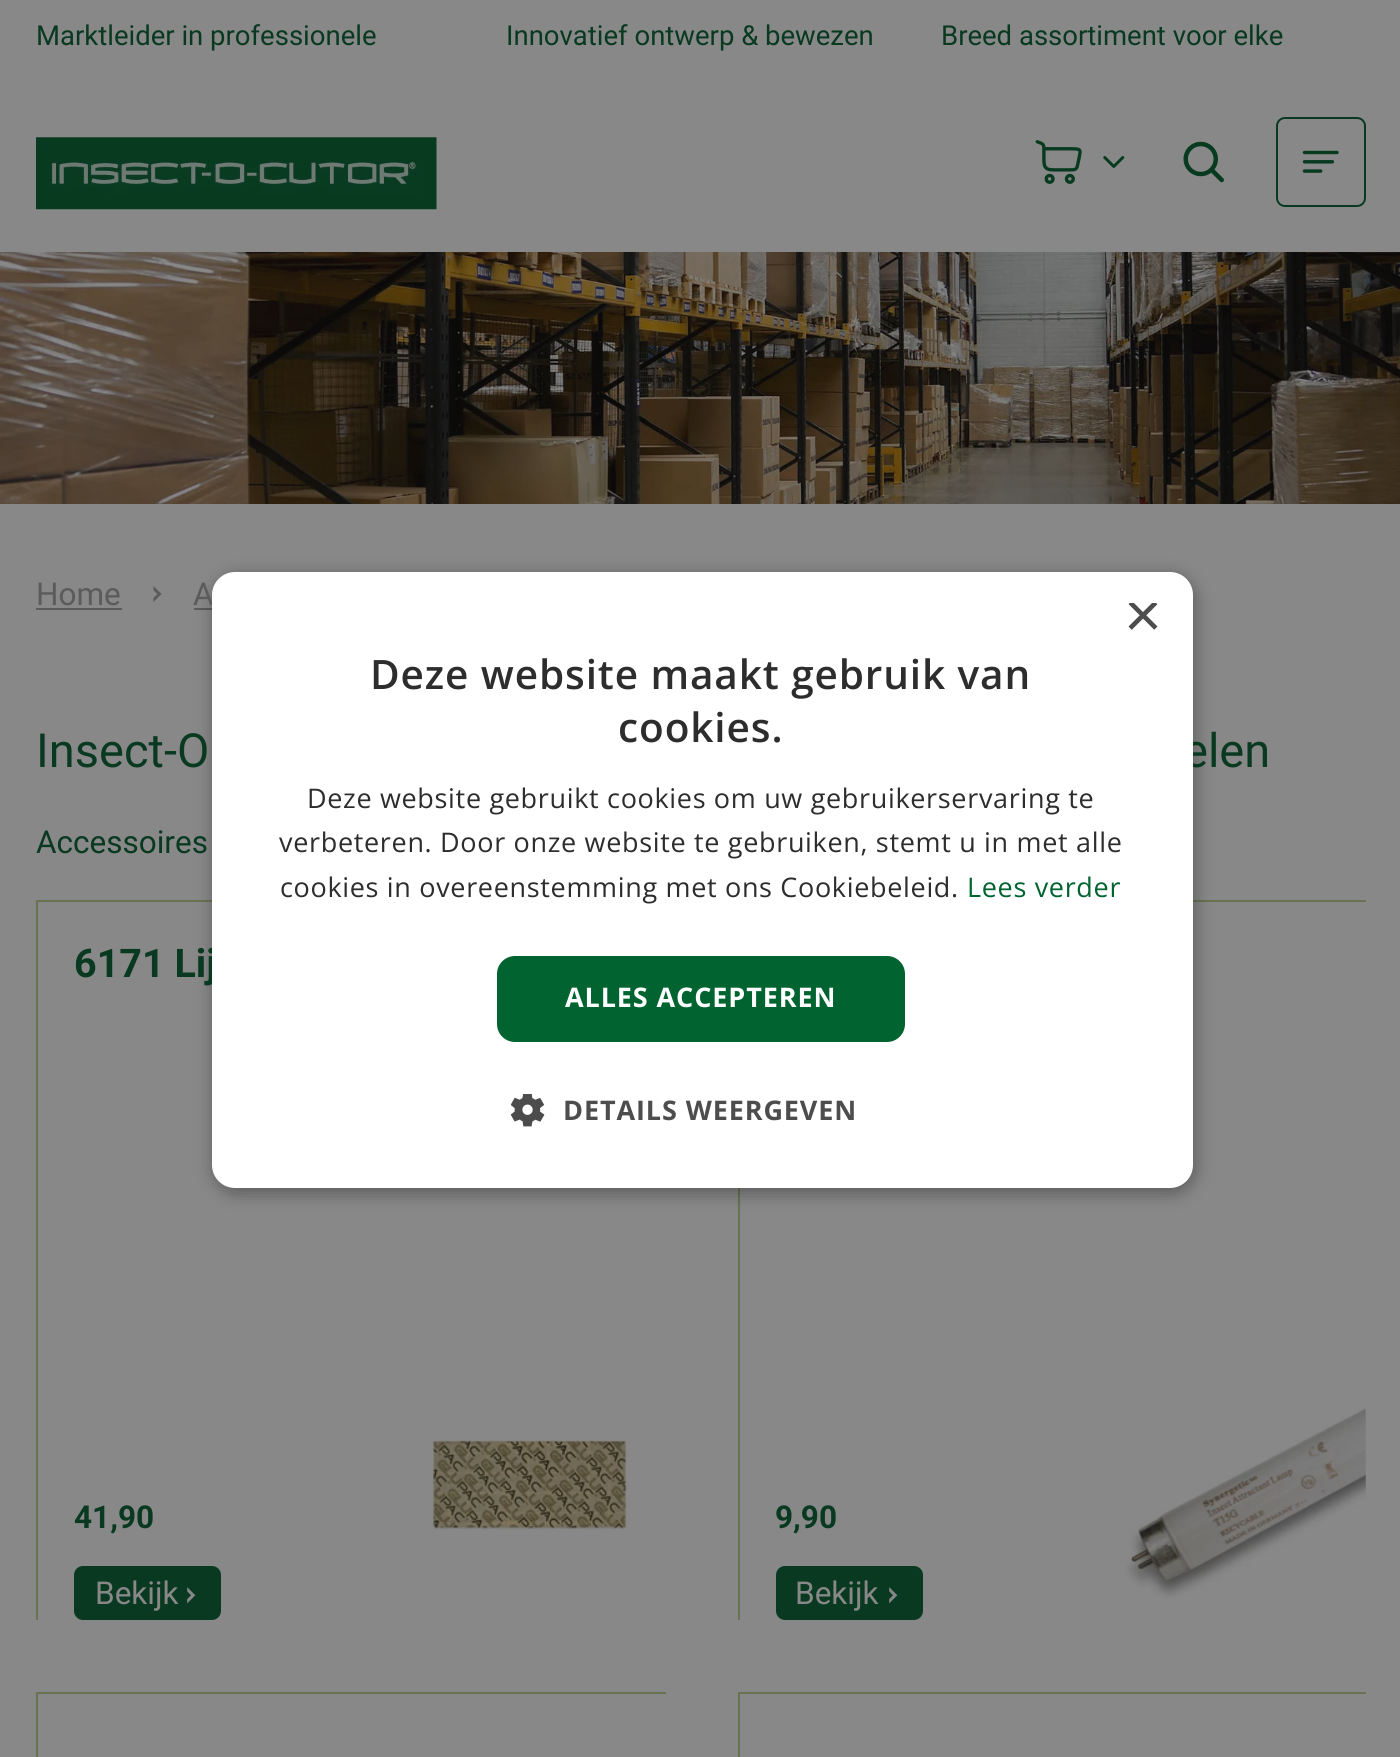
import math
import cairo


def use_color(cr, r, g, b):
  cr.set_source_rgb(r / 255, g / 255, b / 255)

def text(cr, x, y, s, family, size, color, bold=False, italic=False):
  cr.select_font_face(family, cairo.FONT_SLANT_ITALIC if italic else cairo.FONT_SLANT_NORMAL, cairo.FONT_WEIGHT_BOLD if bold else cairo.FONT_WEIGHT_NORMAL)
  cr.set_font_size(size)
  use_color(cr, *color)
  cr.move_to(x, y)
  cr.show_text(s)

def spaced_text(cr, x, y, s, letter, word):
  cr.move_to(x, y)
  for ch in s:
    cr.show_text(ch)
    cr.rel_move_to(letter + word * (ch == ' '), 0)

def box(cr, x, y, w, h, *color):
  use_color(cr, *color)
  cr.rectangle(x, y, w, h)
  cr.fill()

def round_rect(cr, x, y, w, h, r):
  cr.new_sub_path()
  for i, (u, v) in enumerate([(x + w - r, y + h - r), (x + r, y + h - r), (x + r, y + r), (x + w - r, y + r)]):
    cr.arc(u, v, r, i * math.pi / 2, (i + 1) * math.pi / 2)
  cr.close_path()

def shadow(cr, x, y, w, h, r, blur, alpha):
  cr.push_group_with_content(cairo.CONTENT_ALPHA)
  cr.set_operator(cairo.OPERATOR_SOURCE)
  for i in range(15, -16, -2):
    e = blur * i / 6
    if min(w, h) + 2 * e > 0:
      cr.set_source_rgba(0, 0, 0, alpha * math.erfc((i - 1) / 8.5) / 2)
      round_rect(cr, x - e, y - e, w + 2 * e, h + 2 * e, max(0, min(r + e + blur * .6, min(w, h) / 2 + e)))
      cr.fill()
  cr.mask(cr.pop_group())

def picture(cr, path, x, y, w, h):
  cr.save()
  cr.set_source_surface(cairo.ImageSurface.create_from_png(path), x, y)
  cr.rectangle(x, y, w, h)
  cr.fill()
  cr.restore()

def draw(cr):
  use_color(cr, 136, 136, 136)
  cr.paint()
  picture(cr, "img_01.png", 36, 137, 401, 73)
  picture(cr, "img_02.png", 1035, 140, 47, 44)
  picture(cr, "img_03.png", 1103, 156, 22, 12)
  picture(cr, "img_04.png", 1183, 141, 41, 42)
  round_rect(cr, 1277, 118, 88, 88, 8)
  use_color(cr, 9, 58, 33)
  cr.stroke()
  picture(cr, "img_05.png", 1302, 150, 37, 23)
  picture(cr, "img_06.png", 0, 252, 1400, 252)
  box(cr, 36, 608, 86, 2, 91, 91, 91)
  picture(cr, "img_07.png", 153, 586, 9, 16)
  box(cr, 194, 608, 18, 2, 91, 91, 91)
  box(cr, 36, 900, 176, 2, 105, 115, 82)
  box(cr, 36, 900, 2, 720, 105, 115, 82)
  picture(cr, "img_08.png", 431, 1439, 196, 91)
  use_color(cr, 9, 58, 33)
  round_rect(cr, 74, 1566, 147, 54, 9)
  cr.fill()
  picture(cr, "img_09.png", 187, 1587, 9, 17)
  box(cr, 1193, 900, 173, 2, 105, 115, 82)
  box(cr, 738, 1188, 2, 432, 105, 115, 82)
  use_color(cr, 9, 58, 33)
  round_rect(cr, 776, 1566, 147, 54, 9)
  cr.fill()
  picture(cr, "img_09.png", 889, 1587, 9, 17)
  picture(cr, "img_10.png", 1126, 1408, 240, 191)
  box(cr, 36, 1692, 630, 2, 105, 115, 82)
  box(cr, 36, 1692, 2, 65, 105, 115, 82)
  box(cr, 738, 1692, 628, 2, 105, 115, 82)
  box(cr, 738, 1692, 2, 65, 105, 115, 82)
  use_color(cr, 0, 0, 0)
  shadow(cr, 214, 576, 981, 617, 23, 9, 0.35)
  text(cr, 36, 45, "Marktleider in professionele", "Roboto", 27.5, (9, 58, 33))
  text(cr, 506, 45, "Innovatief ontwerp & bewezen", "Roboto", 27.5, (9, 58, 33))
  text(cr, 941, 45, "Breed assortiment voor elke", "Roboto", 27.5, (9, 58, 33))
  text(cr, 36, 605, "Home", "Roboto", 31.5, (91, 91, 91))
  text(cr, 193, 605, "A", "Roboto", 31.5, (91, 91, 91))
  text(cr, 36, 767, "Insect-O", "Roboto", 47, (9, 58, 33))
  text(cr, 1183, 767, "elen", "Roboto", 47, (9, 58, 33))
  text(cr, 36, 853, "Accessoires", "Roboto", 31.5, (9, 58, 33))
  text(cr, 74, 977, "6171 Lij", "Roboto", 39.5, (9, 58, 33), bold=True)
  text(cr, 74, 1528, "41,90", "Roboto", 31.5, (9, 58, 33), bold=True)
  text(cr, 95, 1604, "Bekijk", "Roboto", 31.5, (136, 136, 136))
  text(cr, 775, 1528, "9,90", "Roboto", 31.5, (9, 58, 33), bold=True)
  text(cr, 795, 1604, "Bekijk", "Roboto", 31.5, (136, 136, 136))
  use_color(cr, 255, 255, 255)
  round_rect(cr, 212, 572, 981, 616, 23)
  cr.fill()
  cr.save()
  cr.rectangle(1125, 603, 34, 34)
  cr.clip()
  text(cr, 1124, 637, "×", "Liberation Sans", 65, (77, 77, 77))
  cr.restore()
  cr.select_font_face("Open Sans SemiBold")
  cr.set_font_size(40.5)
  use_color(cr, 45, 45, 45)
  spaced_text(cr, 370, 689, "Deze website maakt gebruik van", 0.9, 0)
  spaced_text(cr, 618, 742, "cookies.", 0.9, 0)
  cr.select_font_face("Open Sans")
  cr.set_font_size(27)
  spaced_text(cr, 307, 808, "Deze website gebruikt cookies om uw gebruikerservaring te", 0.67, 0)
  spaced_text(cr, 279, 852, "verbeteren. Door onze website te gebruiken, stemt u in met alle", 0.67, 0)
  spaced_text(cr, 280, 897, "cookies in overeenstemming met ons Cookiebeleid.", 0.67, 0)
  use_color(cr, 0, 99, 48)
  spaced_text(cr, 967, 897, "Lees verder", 0.67, 0)
  round_rect(cr, 497, 956, 408, 86, 18)
  cr.fill()
  cr.select_font_face("Open Sans", cairo.FONT_SLANT_NORMAL, cairo.FONT_WEIGHT_BOLD)
  use_color(cr, 255, 255, 255)
  spaced_text(cr, 565, 1007, "ALLES ACCEPTEREN", 0.9, 0)
  picture(cr, "img_11.png", 511, 1094, 34, 33)
  use_color(cr, 77, 77, 77)
  spaced_text(cr, 563, 1120, "DETAILS WEERGEVEN", 0.9, 0)


surface = cairo.ImageSurface(cairo.FORMAT_RGB24, 1400, 1757)
cr = cairo.Context(surface)
options = cairo.FontOptions()
options.set_hint_metrics(cairo.HINT_METRICS_OFF)
options.set_hint_style(cairo.HINT_STYLE_NONE)
cr.set_font_options(options)
cr.set_miter_limit(4)
draw(cr)
surface.write_to_png("out.png")
